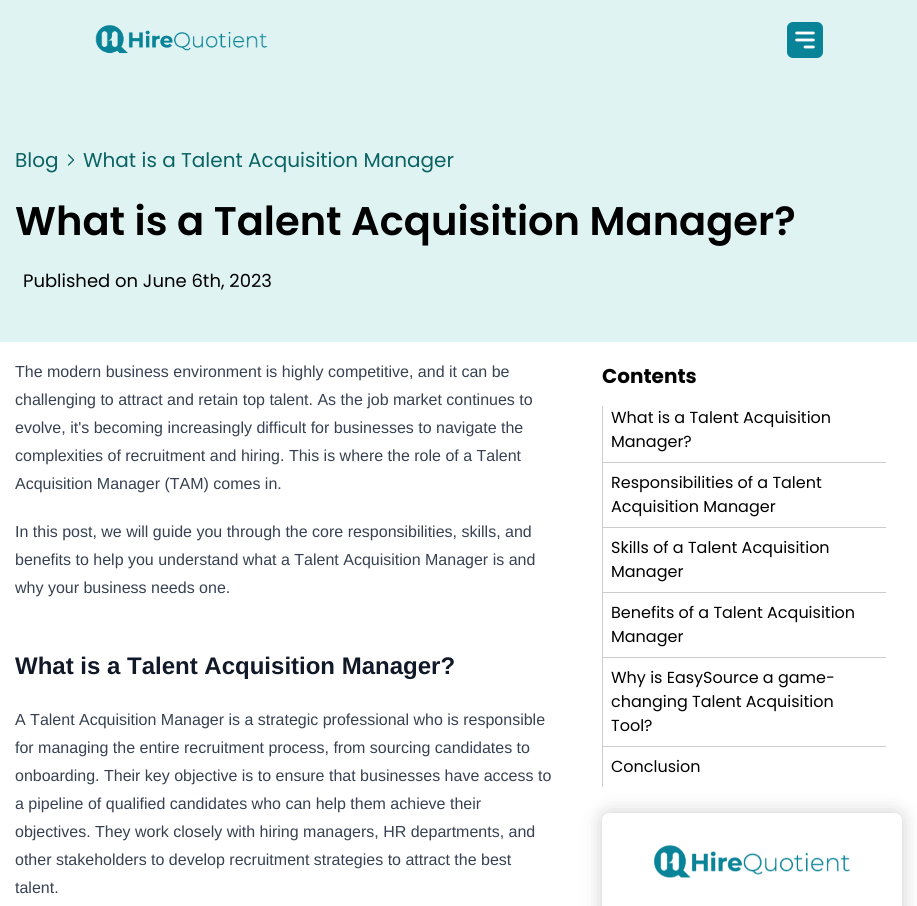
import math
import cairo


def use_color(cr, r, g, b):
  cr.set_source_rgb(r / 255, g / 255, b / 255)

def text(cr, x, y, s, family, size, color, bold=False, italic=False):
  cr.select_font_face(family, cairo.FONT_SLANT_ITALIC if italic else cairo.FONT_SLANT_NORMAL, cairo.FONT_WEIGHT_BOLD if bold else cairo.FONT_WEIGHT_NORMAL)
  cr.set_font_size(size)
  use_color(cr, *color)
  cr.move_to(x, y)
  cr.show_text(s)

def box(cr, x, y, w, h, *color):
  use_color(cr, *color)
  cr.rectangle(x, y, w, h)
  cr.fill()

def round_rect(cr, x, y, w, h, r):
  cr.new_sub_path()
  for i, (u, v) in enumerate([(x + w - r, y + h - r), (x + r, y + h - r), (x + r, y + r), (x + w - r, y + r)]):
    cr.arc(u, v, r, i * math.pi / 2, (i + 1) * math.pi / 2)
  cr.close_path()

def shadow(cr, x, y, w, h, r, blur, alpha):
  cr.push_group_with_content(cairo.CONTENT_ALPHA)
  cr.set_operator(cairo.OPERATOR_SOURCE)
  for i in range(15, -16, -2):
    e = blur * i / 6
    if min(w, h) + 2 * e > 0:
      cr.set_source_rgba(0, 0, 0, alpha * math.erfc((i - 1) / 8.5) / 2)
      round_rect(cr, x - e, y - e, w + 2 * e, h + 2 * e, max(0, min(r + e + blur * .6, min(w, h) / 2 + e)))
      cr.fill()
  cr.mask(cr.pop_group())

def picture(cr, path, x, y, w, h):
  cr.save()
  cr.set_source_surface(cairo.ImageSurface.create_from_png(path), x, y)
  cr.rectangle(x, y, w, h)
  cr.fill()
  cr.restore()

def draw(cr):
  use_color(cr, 255, 255, 255)
  cr.paint()
  box(cr, 0, 0, 917, 342, 223, 243, 243)
  picture(cr, "img_01.png", 95, 25, 173, 29)
  use_color(cr, 8, 131, 151)
  round_rect(cr, 787, 22, 36, 36, 6)
  cr.fill()
  picture(cr, "img_02.png", 795, 31, 20, 18)
  cr.new_path()
  cr.move_to(68.5, 155)
  cr.line_to(73.5, 160)
  cr.line_to(68.5, 165)
  use_color(cr, 10, 99, 99)
  cr.set_line_width(1.3)
  cr.set_line_cap(cairo.LINE_CAP_ROUND)
  cr.set_line_join(cairo.LINE_JOIN_ROUND)
  cr.stroke()
  box(cr, 602, 462, 284, 1, 204, 204, 204)
  box(cr, 602, 406, 1, 57, 204, 204, 204)
  box(cr, 602, 527, 284, 1, 204, 204, 204)
  box(cr, 602, 463, 1, 65, 204, 204, 204)
  box(cr, 602, 592, 284, 1, 204, 204, 204)
  box(cr, 602, 528, 1, 65, 204, 204, 204)
  box(cr, 602, 657, 284, 1, 204, 204, 204)
  box(cr, 602, 593, 1, 65, 204, 204, 204)
  box(cr, 602, 746, 284, 1, 204, 204, 204)
  box(cr, 602, 658, 1, 129, 204, 204, 204)
  use_color(cr, 0, 0, 0)
  shadow(cr, 602, 813, 300, 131, 8, 10, 0.2)
  use_color(cr, 255, 255, 255)
  round_rect(cr, 602, 813, 300, 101, 8)
  cr.fill()
  picture(cr, "img_03.png", 654, 845, 196, 33)
  text(cr, 15, 167, "Blog", "Poppins", 20, (10, 99, 99))
  text(cr, 83, 167, "What is a Talent Acquisition Manager", "Poppins", 20, (10, 99, 99))
  text(cr, 15, 235, "What is a Talent Acquisition Manager?", "Poppins SemiBold", 40, (0, 0, 0))
  text(cr, 23, 287, "Published on June 6th, 2023", "Poppins", 18, (0, 0, 0))
  text(cr, 15, 377, "The modern business environment is highly competitive, and it can be", "Liberation Sans", 16, (55, 65, 81))
  text(cr, 15, 405, "challenging to attract and retain top talent. As the job market continues to", "Liberation Sans", 16, (55, 65, 81))
  text(cr, 15, 433, "evolve, it's becoming increasingly difficult for businesses to navigate the", "Liberation Sans", 16, (55, 65, 81))
  text(cr, 15, 461, "complexities of recruitment and hiring. This is where the role of a Talent", "Liberation Sans", 16, (55, 65, 81))
  text(cr, 15, 489, "Acquisition Manager (TAM) comes in.", "Liberation Sans", 16, (55, 65, 81))
  text(cr, 15, 537, "In this post, we will guide you through the core responsibilities, skills, and", "Liberation Sans", 16, (55, 65, 81))
  text(cr, 15, 565, "benefits to help you understand what a Talent Acquisition Manager is and", "Liberation Sans", 16, (55, 65, 81))
  text(cr, 15, 593, "why your business needs one.", "Liberation Sans", 16, (55, 65, 81))
  text(cr, 15, 674, "What is a Talent Acquisition Manager?", "Liberation Sans", 24, (17, 24, 39), bold=True)
  text(cr, 15, 725, "A Talent Acquisition Manager is a strategic professional who is responsible", "Liberation Sans", 16, (55, 65, 81))
  text(cr, 15, 753, "for managing the entire recruitment process, from sourcing candidates to", "Liberation Sans", 16, (55, 65, 81))
  text(cr, 15, 781, "onboarding. Their key objective is to ensure that businesses have access to", "Liberation Sans", 16, (55, 65, 81))
  text(cr, 15, 809, "a pipeline of qualified candidates who can help them achieve their", "Liberation Sans", 16, (55, 65, 81))
  text(cr, 15, 837, "objectives. They work closely with hiring managers, HR departments, and", "Liberation Sans", 16, (55, 65, 81))
  text(cr, 15, 865, "other stakeholders to develop recruitment strategies to attract the best", "Liberation Sans", 16, (55, 65, 81))
  text(cr, 15, 893, "talent.", "Liberation Sans", 16, (55, 65, 81))
  text(cr, 602, 383, "Contents", "Poppins", 20, (0, 0, 0), bold=True)
  text(cr, 611, 423, "What is a Talent Acquisition", "Poppins", 16, (0, 0, 0))
  text(cr, 611, 447, "Manager?", "Poppins", 16, (0, 0, 0))
  text(cr, 611, 488, "Responsibilities of a Talent", "Poppins", 16, (0, 0, 0))
  text(cr, 611, 512, "Acquisition Manager", "Poppins", 16, (0, 0, 0))
  text(cr, 611, 553, "Skills of a Talent Acquisition", "Poppins", 16, (0, 0, 0))
  text(cr, 611, 577, "Manager", "Poppins", 16, (0, 0, 0))
  text(cr, 611, 618, "Benefits of a Talent Acquisition", "Poppins", 16, (0, 0, 0))
  text(cr, 611, 642, "Manager", "Poppins", 16, (0, 0, 0))
  text(cr, 611, 683, "Why is EasySource a game-", "Poppins", 16, (0, 0, 0))
  text(cr, 611, 707, "changing Talent Acquisition", "Poppins", 16, (0, 0, 0))
  text(cr, 611, 731, "Tool?", "Poppins", 16, (0, 0, 0))
  text(cr, 611, 772, "Conclusion", "Poppins", 16, (0, 0, 0))


surface = cairo.ImageSurface(cairo.FORMAT_RGB24, 917, 906)
cr = cairo.Context(surface)
options = cairo.FontOptions()
options.set_hint_metrics(cairo.HINT_METRICS_OFF)
options.set_hint_style(cairo.HINT_STYLE_NONE)
cr.set_font_options(options)
cr.set_miter_limit(4)
draw(cr)
surface.write_to_png("out.png")
